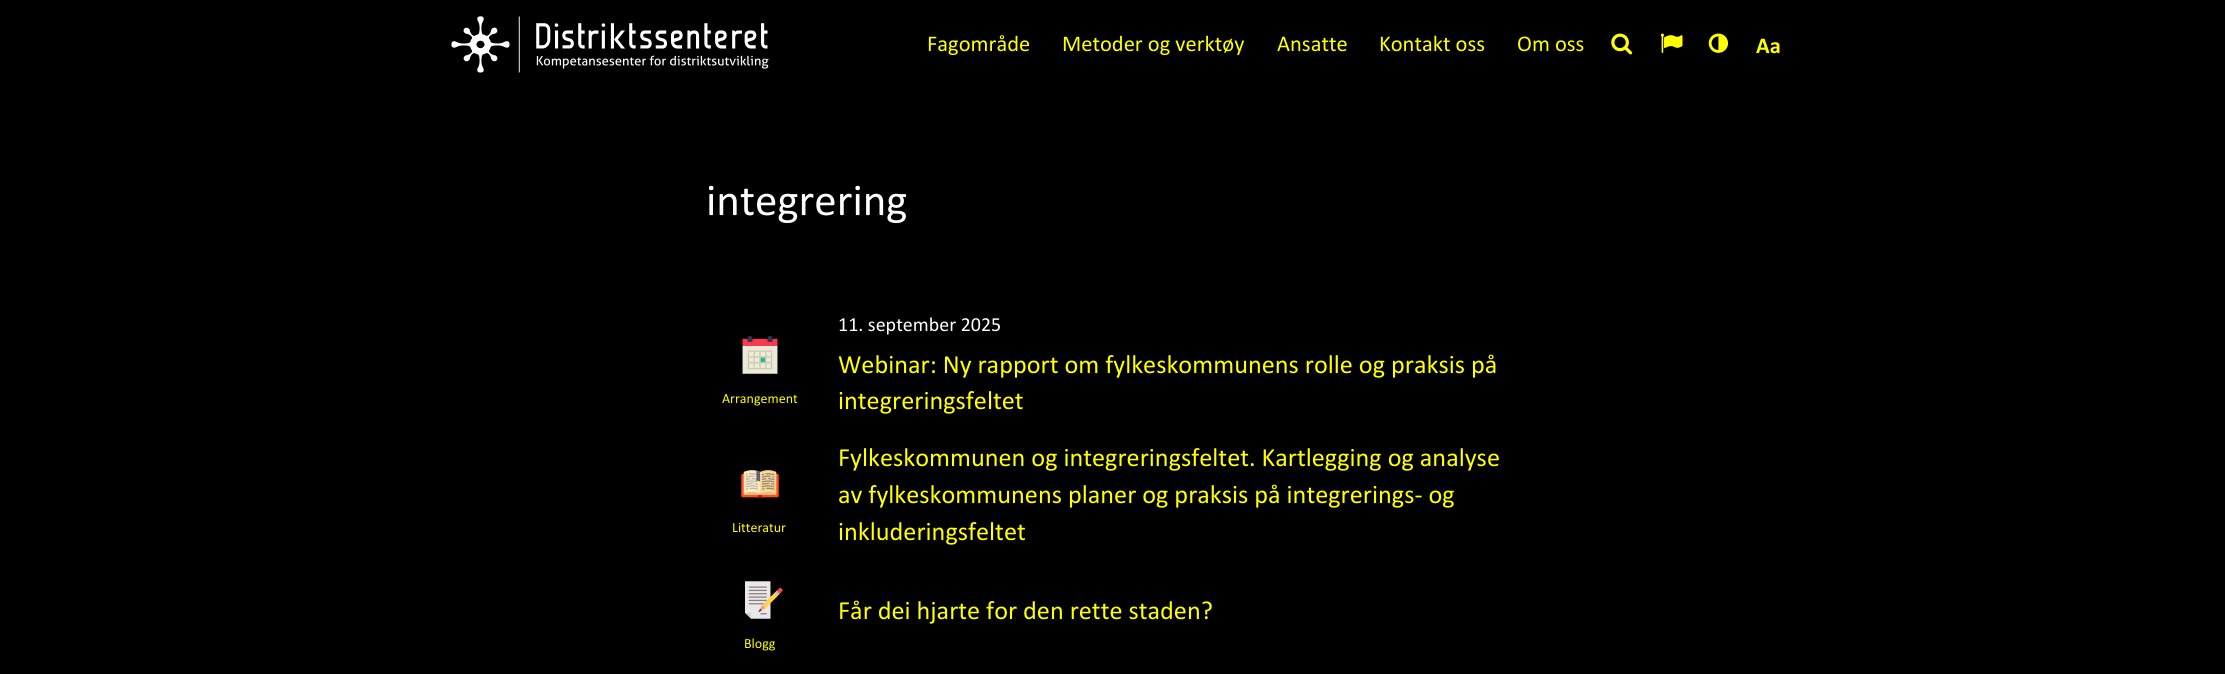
import math
import cairo


def use_color(cr, r, g, b):
  cr.set_source_rgb(r / 255, g / 255, b / 255)

def text(cr, x, y, s, family, size, color, bold=False, italic=False):
  cr.select_font_face(family, cairo.FONT_SLANT_ITALIC if italic else cairo.FONT_SLANT_NORMAL, cairo.FONT_WEIGHT_BOLD if bold else cairo.FONT_WEIGHT_NORMAL)
  cr.set_font_size(size)
  use_color(cr, *color)
  cr.move_to(x, y)
  cr.show_text(s)

def picture(cr, path, x, y, w, h):
  cr.save()
  cr.set_source_surface(cairo.ImageSurface.create_from_png(path), x, y)
  cr.rectangle(x, y, w, h)
  cr.fill()
  cr.restore()

def draw(cr):
  use_color(cr, 0, 0, 0)
  cr.paint()
  picture(cr, "img_01.png", 451, 16, 318, 57)
  picture(cr, "img_02.png", 1611, 33, 22, 22)
  picture(cr, "img_03.png", 1660, 33, 23, 20)
  picture(cr, "img_04.png", 1708, 33, 20, 20)
  picture(cr, "img_05.png", 742, 336, 36, 38)
  picture(cr, "img_06.png", 741, 470, 38, 28)
  picture(cr, "img_07.png", 745, 581, 38, 38)
  text(cr, 927, 51, "Fagområde", "Calibri", 22.5, (255, 255, 0))
  text(cr, 1062, 51, "Metoder og verktøy", "Calibri", 22.5, (255, 255, 0))
  text(cr, 1277, 51, "Ansatte", "Calibri", 22.5, (255, 255, 0))
  text(cr, 1379, 51, "Kontakt oss", "Calibri", 22.5, (255, 255, 0))
  text(cr, 1517, 51, "Om oss", "Calibri", 22.5, (255, 255, 0))
  text(cr, 1756, 53, "Aa", "Calibri", 22.5, (255, 255, 0), bold=True)
  text(cr, 706, 215, "integrering", "Calibri", 45, (255, 255, 255))
  text(cr, 722, 403, "Arrangement", "Calibri", 14, (255, 255, 0))
  text(cr, 838, 331, "11. september 2025", "Calibri", 20, (255, 255, 255))
  text(cr, 838, 373, "Webinar: Ny rapport om fylkeskommunens rolle og praksis på", "Calibri", 26.25, (255, 255, 0))
  text(cr, 838, 409, "integreringsfeltet", "Calibri", 26.25, (255, 255, 0))
  text(cr, 732, 532, "Litteratur", "Calibri", 14, (255, 255, 0))
  text(cr, 838, 466, "Fylkeskommunen og integreringsfeltet. Kartlegging og analyse", "Calibri", 26.25, (255, 255, 0))
  text(cr, 838, 503, "av fylkeskommunens planer og praksis på integrerings- og", "Calibri", 26.25, (255, 255, 0))
  text(cr, 838, 540, "inkluderingsfeltet", "Calibri", 26.25, (255, 255, 0))
  text(cr, 838, 619, "Får dei hjarte for den rette staden?", "Calibri", 26.25, (255, 255, 0))
  text(cr, 744, 648, "Blogg", "Calibri", 14, (255, 255, 0))


surface = cairo.ImageSurface(cairo.FORMAT_RGB24, 2225, 674)
cr = cairo.Context(surface)
options = cairo.FontOptions()
options.set_hint_metrics(cairo.HINT_METRICS_OFF)
options.set_hint_style(cairo.HINT_STYLE_NONE)
cr.set_font_options(options)
cr.set_miter_limit(4)
draw(cr)
surface.write_to_png("out.png")
